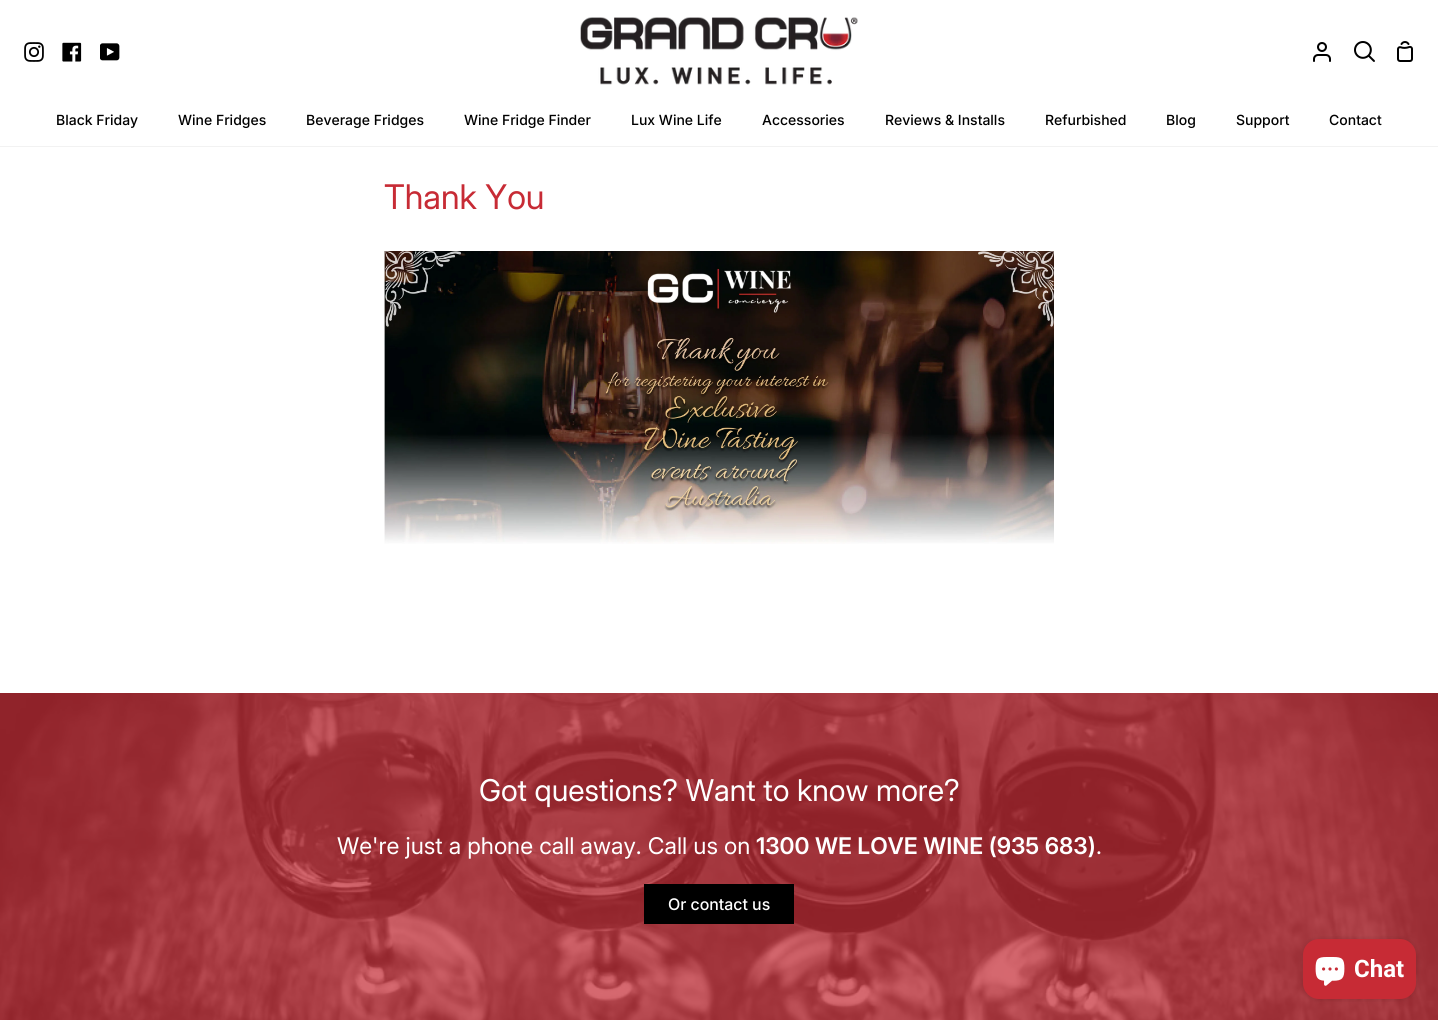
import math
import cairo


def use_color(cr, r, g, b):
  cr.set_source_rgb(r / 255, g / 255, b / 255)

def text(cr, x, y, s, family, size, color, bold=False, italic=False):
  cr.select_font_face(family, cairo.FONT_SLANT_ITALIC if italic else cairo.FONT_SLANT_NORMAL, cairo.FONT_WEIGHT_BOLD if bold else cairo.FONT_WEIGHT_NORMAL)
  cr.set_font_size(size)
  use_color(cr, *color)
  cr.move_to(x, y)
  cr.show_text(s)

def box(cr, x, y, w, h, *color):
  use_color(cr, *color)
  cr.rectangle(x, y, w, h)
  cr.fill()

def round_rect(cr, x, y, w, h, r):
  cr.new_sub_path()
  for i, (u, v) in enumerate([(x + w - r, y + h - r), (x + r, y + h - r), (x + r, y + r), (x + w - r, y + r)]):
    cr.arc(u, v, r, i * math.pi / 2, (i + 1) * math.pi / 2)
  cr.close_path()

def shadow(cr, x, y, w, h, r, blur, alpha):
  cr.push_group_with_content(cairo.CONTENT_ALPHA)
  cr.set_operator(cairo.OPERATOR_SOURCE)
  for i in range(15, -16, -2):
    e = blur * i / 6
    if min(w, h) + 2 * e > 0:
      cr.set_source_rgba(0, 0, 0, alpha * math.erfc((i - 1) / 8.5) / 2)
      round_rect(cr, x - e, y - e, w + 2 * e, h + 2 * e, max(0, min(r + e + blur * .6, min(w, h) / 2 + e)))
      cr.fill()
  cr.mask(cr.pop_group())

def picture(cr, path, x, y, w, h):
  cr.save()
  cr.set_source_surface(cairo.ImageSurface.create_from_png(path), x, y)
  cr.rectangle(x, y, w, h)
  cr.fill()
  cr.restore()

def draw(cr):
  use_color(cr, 255, 255, 255)
  cr.paint()
  box(cr, 0, 146, 1438, 1, 242, 242, 242)
  picture(cr, "img_01.png", 24, 42, 20, 20)
  picture(cr, "img_02.png", 62, 42, 20, 20)
  picture(cr, "img_03.png", 100, 43, 20, 18)
  picture(cr, "img_04.png", 580, 17, 278, 68)
  picture(cr, "img_05.png", 1313, 42, 18, 20)
  picture(cr, "img_06.png", 1354, 41, 21, 21)
  picture(cr, "img_07.png", 1397, 41, 16, 21)
  picture(cr, "img_08.png", 384, 251, 670, 293)
  picture(cr, "img_09.png", 0, 693, 1438, 327)
  box(cr, 644, 884, 150, 40, 0, 0, 0)
  use_color(cr, 0, 0, 0)
  shadow(cr, 1303, 939, 113, 60, 16, 2.5, 0.15)
  use_color(cr, 199, 43, 53)
  round_rect(cr, 1303, 939, 113, 60, 16)
  cr.fill()
  picture(cr, "img_10.png", 1315, 957, 30, 29)
  text(cr, 56, 125, "Black Friday", "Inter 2 Medium", 14, (0, 0, 0))
  text(cr, 178, 125, "Wine Fridges", "Inter 2 Medium", 14, (0, 0, 0))
  text(cr, 306, 125, "Beverage Fridges", "Inter 2 Medium", 14, (0, 0, 0))
  text(cr, 464, 125, "Wine Fridge Finder", "Inter 2 Medium", 14, (0, 0, 0))
  text(cr, 631, 125, "Lux Wine Life", "Inter 2 Medium", 14, (0, 0, 0))
  text(cr, 762, 125, "Accessories", "Inter 2 Medium", 14, (0, 0, 0))
  text(cr, 885, 125, "Reviews & Installs", "Inter 2 Medium", 14, (0, 0, 0))
  text(cr, 1045, 125, "Refurbished", "Inter 2 Medium", 14, (0, 0, 0))
  text(cr, 1166, 125, "Blog", "Inter 2 Medium", 14, (0, 0, 0))
  text(cr, 1236, 125, "Support", "Inter 2 Medium", 14, (0, 0, 0))
  text(cr, 1329, 125, "Contact", "Inter 2 Medium", 14, (0, 0, 0))
  text(cr, 384, 209, "Thank You", "Inter", 34, (199, 43, 53))
  text(cr, 479, 801, "Got questions? Want to know more?", "Inter 2", 30, (255, 255, 255))
  text(cr, 337, 854, "We're just a phone call away. Call us on", "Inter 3", 23, (255, 255, 255))
  text(cr, 756, 854, "1300 WE LOVE WINE (935 683)", "Inter SemiBold", 23, (255, 255, 255))
  text(cr, 1096, 854, ".", "Inter 3", 23, (255, 255, 255))
  text(cr, 668, 910, "Or contact us", "Inter Medium", 16, (255, 255, 255))
  text(cr, 1354, 977, "Chat", "Roboto", 24, (255, 255, 255), bold=True)


surface = cairo.ImageSurface(cairo.FORMAT_RGB24, 1438, 1020)
cr = cairo.Context(surface)
options = cairo.FontOptions()
options.set_hint_metrics(cairo.HINT_METRICS_OFF)
options.set_hint_style(cairo.HINT_STYLE_NONE)
cr.set_font_options(options)
cr.set_miter_limit(4)
draw(cr)
surface.write_to_png("out.png")
